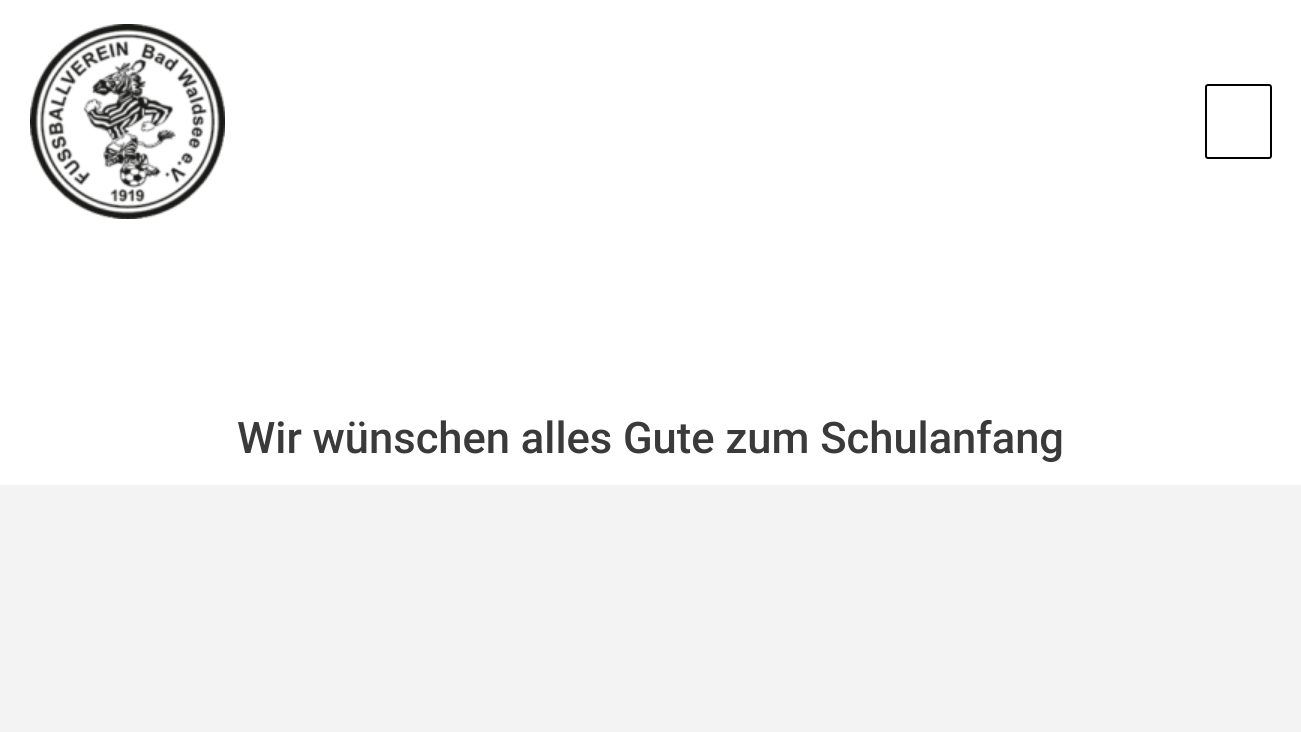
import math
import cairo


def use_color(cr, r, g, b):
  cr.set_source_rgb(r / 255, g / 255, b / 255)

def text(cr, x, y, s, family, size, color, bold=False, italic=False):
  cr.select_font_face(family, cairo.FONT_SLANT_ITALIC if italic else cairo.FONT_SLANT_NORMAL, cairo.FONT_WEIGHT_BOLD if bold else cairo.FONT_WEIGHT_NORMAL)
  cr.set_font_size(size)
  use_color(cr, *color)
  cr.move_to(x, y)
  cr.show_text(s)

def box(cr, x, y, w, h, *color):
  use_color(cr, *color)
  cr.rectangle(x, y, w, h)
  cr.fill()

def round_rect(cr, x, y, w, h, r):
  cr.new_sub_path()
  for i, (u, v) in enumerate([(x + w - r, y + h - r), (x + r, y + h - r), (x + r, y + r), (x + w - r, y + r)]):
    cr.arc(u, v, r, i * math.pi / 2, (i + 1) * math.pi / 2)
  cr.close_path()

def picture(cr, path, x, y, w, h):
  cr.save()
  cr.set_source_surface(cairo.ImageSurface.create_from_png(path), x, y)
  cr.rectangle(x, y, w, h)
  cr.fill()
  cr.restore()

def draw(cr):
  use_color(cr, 255, 255, 255)
  cr.paint()
  picture(cr, "img_01.png", 30, 24, 195, 195)
  round_rect(cr, 1206, 85, 65, 73, 2)
  use_color(cr, 1, 1, 1)
  cr.stroke()
  box(cr, 0, 485, 1301, 247, 243, 243, 243)
  text(cr, 237, 453, "Wir wünschen alles Gute zum Schulanfang", "Roboto Medium", 43.5, (58, 58, 58))


surface = cairo.ImageSurface(cairo.FORMAT_RGB24, 1301, 732)
cr = cairo.Context(surface)
options = cairo.FontOptions()
options.set_hint_metrics(cairo.HINT_METRICS_OFF)
options.set_hint_style(cairo.HINT_STYLE_NONE)
cr.set_font_options(options)
cr.set_miter_limit(4)
draw(cr)
surface.write_to_png("out.png")
